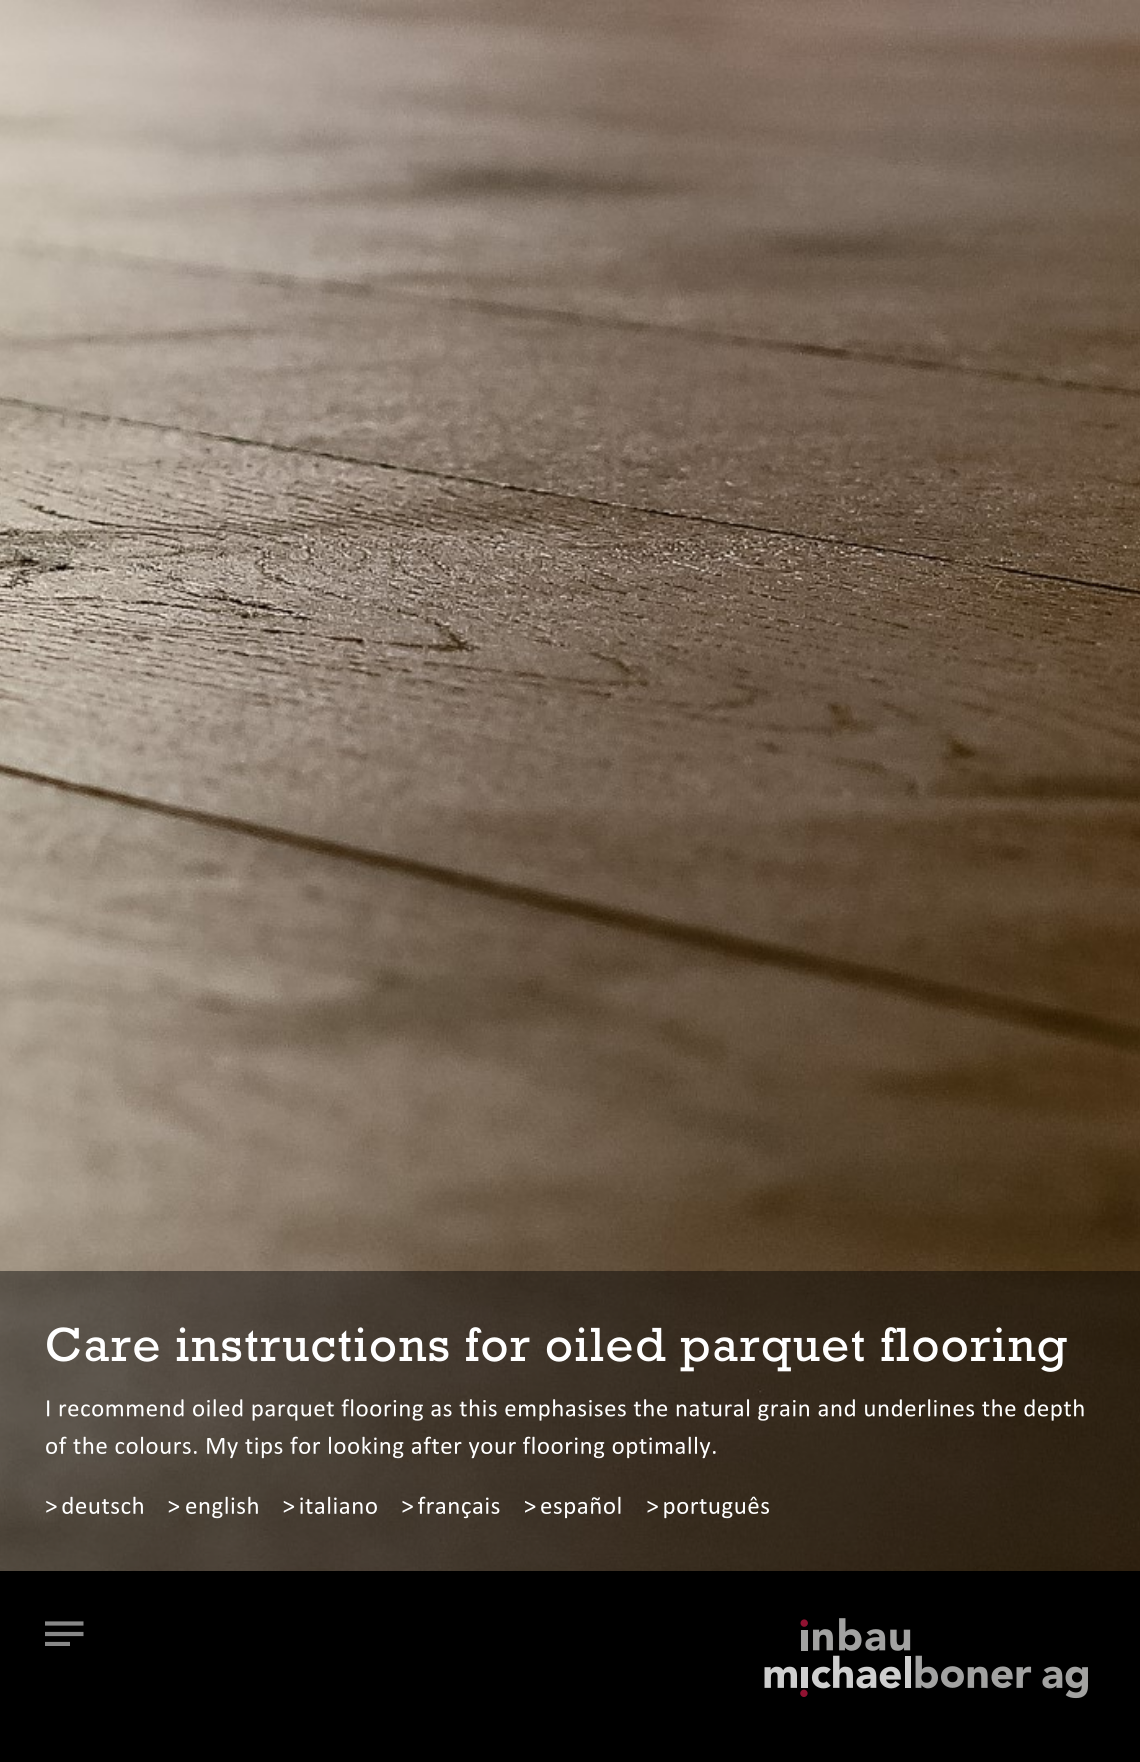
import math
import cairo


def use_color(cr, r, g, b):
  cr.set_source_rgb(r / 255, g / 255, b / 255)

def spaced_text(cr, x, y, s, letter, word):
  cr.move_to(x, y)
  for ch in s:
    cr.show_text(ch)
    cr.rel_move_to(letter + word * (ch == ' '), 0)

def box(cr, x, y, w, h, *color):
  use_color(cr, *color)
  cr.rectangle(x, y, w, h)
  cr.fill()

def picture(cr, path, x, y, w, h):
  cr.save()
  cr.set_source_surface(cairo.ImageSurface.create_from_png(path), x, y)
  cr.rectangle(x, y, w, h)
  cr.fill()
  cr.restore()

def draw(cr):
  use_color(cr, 255, 255, 255)
  cr.paint()
  picture(cr, "img_01.png", 0, 0, 1140, 1571)
  cr.set_source_rgba(0, 0, 0, 0.43)
  cr.rectangle(0, 1271, 1140, 300)
  cr.fill()
  picture(cr, "img_02.png", 47, 1399, 762, 22)
  picture(cr, "img_03.png", 818, 1399, 266, 22)
  picture(cr, "img_04.png", 46, 1436, 470, 23)
  picture(cr, "img_05.png", 523, 1436, 193, 23)
  picture(cr, "img_06.png", 46, 1500, 11, 13)
  picture(cr, "img_07.png", 62, 1496, 81, 18)
  picture(cr, "img_08.png", 168, 1501, 12, 12)
  picture(cr, "img_09.png", 186, 1496, 72, 23)
  picture(cr, "img_10.png", 283, 1501, 12, 12)
  picture(cr, "img_11.png", 300, 1496, 77, 18)
  picture(cr, "img_12.png", 402, 1500, 11, 13)
  picture(cr, "img_13.png", 418, 1496, 82, 23)
  picture(cr, "img_14.png", 525, 1500, 11, 13)
  picture(cr, "img_15.png", 541, 1496, 80, 23)
  picture(cr, "img_16.png", 647, 1500, 11, 13)
  picture(cr, "img_17.png", 664, 1496, 105, 23)
  box(cr, 0, 1571, 1140, 191, 0, 0, 0)
  cr.save()
  cr.rectangle(45, 1621, 39, 25)
  cr.clip()
  cr.new_path()
  cr.move_to(45, 1623.5)
  cr.line_to(83.5, 1623.5)
  cr.move_to(45, 1634)
  cr.line_to(83.5, 1634)
  cr.move_to(45, 1644)
  cr.line_to(70, 1644)
  use_color(cr, 136, 136, 136)
  cr.set_line_width(4.2)
  cr.stroke()
  cr.restore()
  picture(cr, "img_18.png", 764, 1618, 324, 81)
  cr.select_font_face("Rockwell")
  cr.set_font_size(48.8)
  use_color(cr, 255, 255, 255)
  spaced_text(cr, 45, 1361, "Care instructions for oiled parquet flooring", 1.35, 0)


surface = cairo.ImageSurface(cairo.FORMAT_RGB24, 1140, 1762)
cr = cairo.Context(surface)
options = cairo.FontOptions()
options.set_hint_metrics(cairo.HINT_METRICS_OFF)
options.set_hint_style(cairo.HINT_STYLE_NONE)
cr.set_font_options(options)
cr.set_miter_limit(4)
draw(cr)
surface.write_to_png("out.png")
